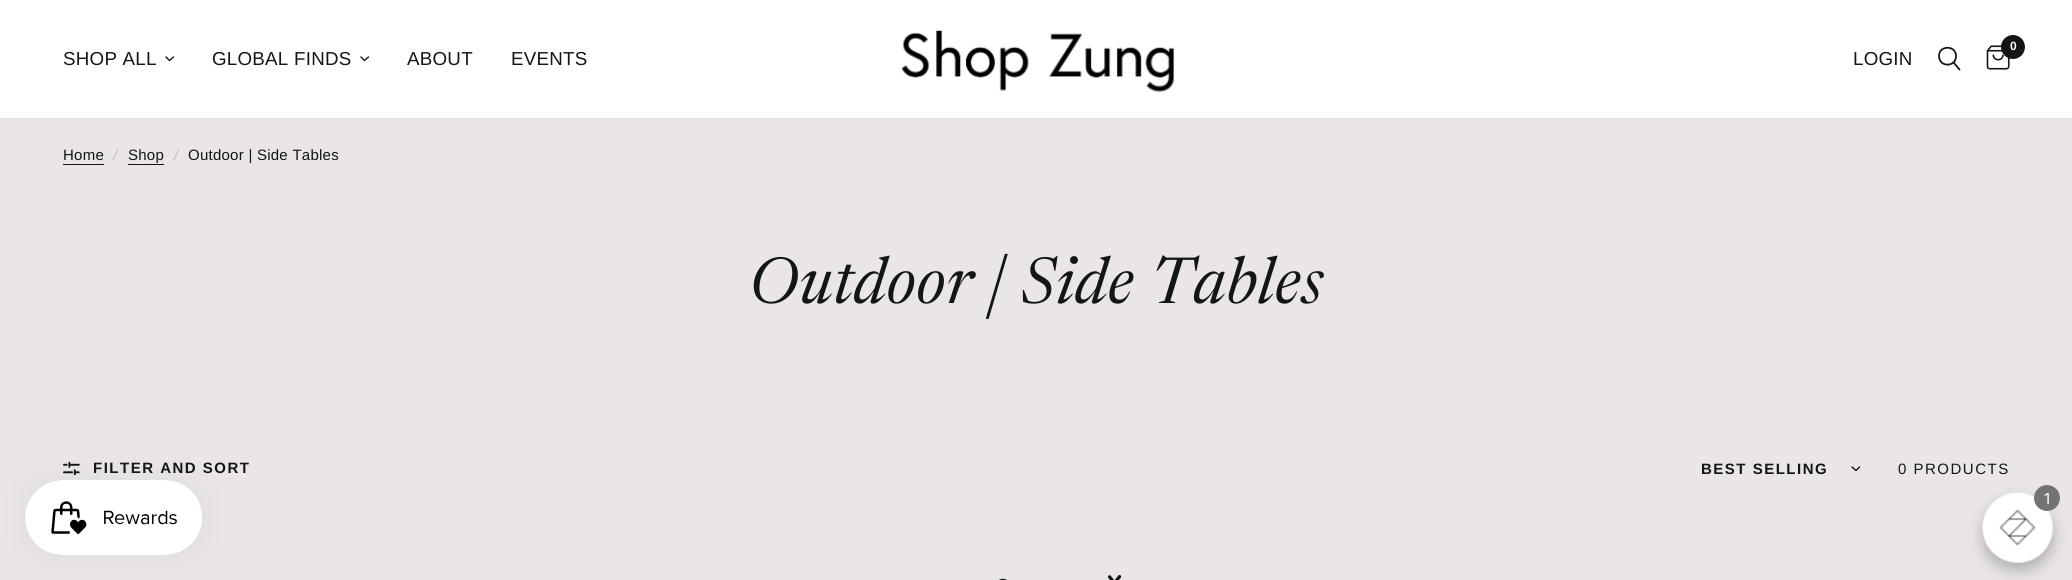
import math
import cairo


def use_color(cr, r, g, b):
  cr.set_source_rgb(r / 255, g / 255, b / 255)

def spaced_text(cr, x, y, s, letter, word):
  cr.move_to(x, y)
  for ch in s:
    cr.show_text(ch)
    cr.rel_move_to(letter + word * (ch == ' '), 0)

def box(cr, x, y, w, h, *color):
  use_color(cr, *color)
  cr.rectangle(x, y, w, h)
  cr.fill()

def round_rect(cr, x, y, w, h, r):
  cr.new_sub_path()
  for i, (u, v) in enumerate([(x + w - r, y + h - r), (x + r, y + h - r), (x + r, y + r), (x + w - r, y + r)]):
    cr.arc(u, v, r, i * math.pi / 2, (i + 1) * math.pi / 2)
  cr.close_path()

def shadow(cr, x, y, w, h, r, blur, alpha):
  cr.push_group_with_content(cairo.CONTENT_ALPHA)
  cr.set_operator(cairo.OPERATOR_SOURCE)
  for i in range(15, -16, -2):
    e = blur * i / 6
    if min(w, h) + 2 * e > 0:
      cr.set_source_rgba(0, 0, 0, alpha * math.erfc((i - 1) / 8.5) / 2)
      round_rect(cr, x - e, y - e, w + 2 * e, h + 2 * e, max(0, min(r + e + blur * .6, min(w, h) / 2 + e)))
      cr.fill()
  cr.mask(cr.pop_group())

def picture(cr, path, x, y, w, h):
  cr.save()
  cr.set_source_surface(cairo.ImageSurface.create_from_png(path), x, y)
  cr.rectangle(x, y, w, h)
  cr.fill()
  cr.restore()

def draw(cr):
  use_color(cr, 234, 230, 230)
  cr.paint()
  box(cr, 0, 0, 2072, 118, 255, 255, 255)
  box(cr, 0, 118, 2072, 1, 226, 226, 226)
  cr.new_path()
  cr.move_to(173.5, 57)
  cr.line_to(169.5, 60.5)
  cr.line_to(166, 57)
  use_color(cr, 21, 21, 21)
  cr.set_line_width(1.4)
  cr.set_line_cap(cairo.LINE_CAP_ROUND)
  cr.set_line_join(cairo.LINE_JOIN_ROUND)
  cr.stroke()
  cr.new_path()
  cr.move_to(368.5, 57)
  cr.line_to(364.5, 60.5)
  cr.line_to(361, 57)
  cr.stroke()
  picture(cr, "img_01.png", 901, 30, 273, 63)
  cr.new_path()
  cr.move_to(1954, 63)
  cr.line_to(1959.5, 69.5)
  cr.move_to(1956, 56)
  cr.curve_to(1956, 67.5, 1939, 67.5, 1939, 56)
  cr.curve_to(1939, 45, 1956, 45, 1956, 56)
  cr.close_path()
  cr.set_line_width(1.8)
  cr.stroke()
  picture(cr, "img_02.png", 1986, 45, 24, 25)
  cr.arc(2013, 47, 12, 0, 2 * math.pi)
  cr.fill()
  box(cr, 63, 164, 41, 1, 21, 21, 21)
  box(cr, 128, 164, 36, 1, 21, 21, 21)
  picture(cr, "img_03.png", 63, 461, 17, 14)
  cr.new_path()
  cr.move_to(1859.5, 467)
  cr.line_to(1856, 470.5)
  cr.line_to(1852, 467)
  cr.set_line_width(1.4)
  cr.stroke()
  picture(cr, "img_04.png", 999, 575, 123, 5)
  use_color(cr, 0, 0, 0)
  shadow(cr, 25, 480, 178, 75, 37.5, 15.5, 0.05)
  picture(cr, "img_05.png", 25, 480, 177, 75)
  shadow(cr, 1983, 500, 70, 70, 35, 7.5, 0.25)
  use_color(cr, 225, 225, 225)
  cr.arc(2018, 528, 35, 0, 2 * math.pi)
  cr.fill()
  picture(cr, "img_06.png", 1982, 492, 71, 71)
  use_color(cr, 115, 115, 115)
  cr.arc(2047, 498, 13, 0, 2 * math.pi)
  cr.fill()
  cr.select_font_face("Liberation Sans")
  cr.set_font_size(18.75)
  use_color(cr, 21, 21, 21)
  spaced_text(cr, 63, 65, "SHOP ALL", 0.25, 0)
  spaced_text(cr, 212, 65, "GLOBAL FINDS", 0.25, 0)
  spaced_text(cr, 407, 65, "ABOUT", 0.25, 0)
  spaced_text(cr, 511, 65, "EVENTS", 0.25, 0)
  spaced_text(cr, 1853, 65, "LOGIN", 0.25, 0)
  cr.select_font_face("Liberation Sans", cairo.FONT_SLANT_NORMAL, cairo.FONT_WEIGHT_BOLD)
  cr.set_font_size(12)
  use_color(cr, 255, 255, 255)
  spaced_text(cr, 2010, 50, "0", 0.25, 0)
  cr.select_font_face("Liberation Sans")
  cr.set_font_size(15)
  use_color(cr, 21, 21, 21)
  spaced_text(cr, 63, 160, "Home", 0.25, 0)
  cr.select_font_face("Liberation Sans", cairo.FONT_SLANT_ITALIC)
  use_color(cr, 191, 188, 188)
  spaced_text(cr, 113, 160, "/", 0.25, 0)
  cr.select_font_face("Liberation Sans")
  use_color(cr, 21, 21, 21)
  spaced_text(cr, 128, 160, "Shop", 0.25, 0)
  cr.select_font_face("Liberation Sans", cairo.FONT_SLANT_ITALIC)
  use_color(cr, 191, 188, 188)
  spaced_text(cr, 174, 160, "/", 0.25, 0)
  cr.select_font_face("Liberation Sans")
  use_color(cr, 21, 21, 21)
  spaced_text(cr, 188, 160, "Outdoor | Side Tables", 0.25, 0)
  cr.select_font_face("Newsreader", cairo.FONT_SLANT_ITALIC)
  cr.set_font_size(65)
  spaced_text(cr, 749, 303, "Outdoor | Side Tables", 0.65, 0)
  cr.select_font_face("Liberation Sans", cairo.FONT_SLANT_NORMAL, cairo.FONT_WEIGHT_BOLD)
  cr.set_font_size(15)
  spaced_text(cr, 93, 473, "FILTER AND SORT", 1.5, 0)
  spaced_text(cr, 1701, 474, "BEST SELLING", 1.5, 0)
  cr.select_font_face("Liberation Sans")
  spaced_text(cr, 1898, 474, "0 PRODUCTS", 1.5, 0)
  cr.select_font_face("Inter")
  use_color(cr, 255, 255, 255)
  spaced_text(cr, 2044, 504, "1", 0.25, 0)


surface = cairo.ImageSurface(cairo.FORMAT_RGB24, 2072, 580)
cr = cairo.Context(surface)
options = cairo.FontOptions()
options.set_hint_metrics(cairo.HINT_METRICS_OFF)
options.set_hint_style(cairo.HINT_STYLE_NONE)
cr.set_font_options(options)
cr.set_miter_limit(4)
draw(cr)
surface.write_to_png("out.png")
